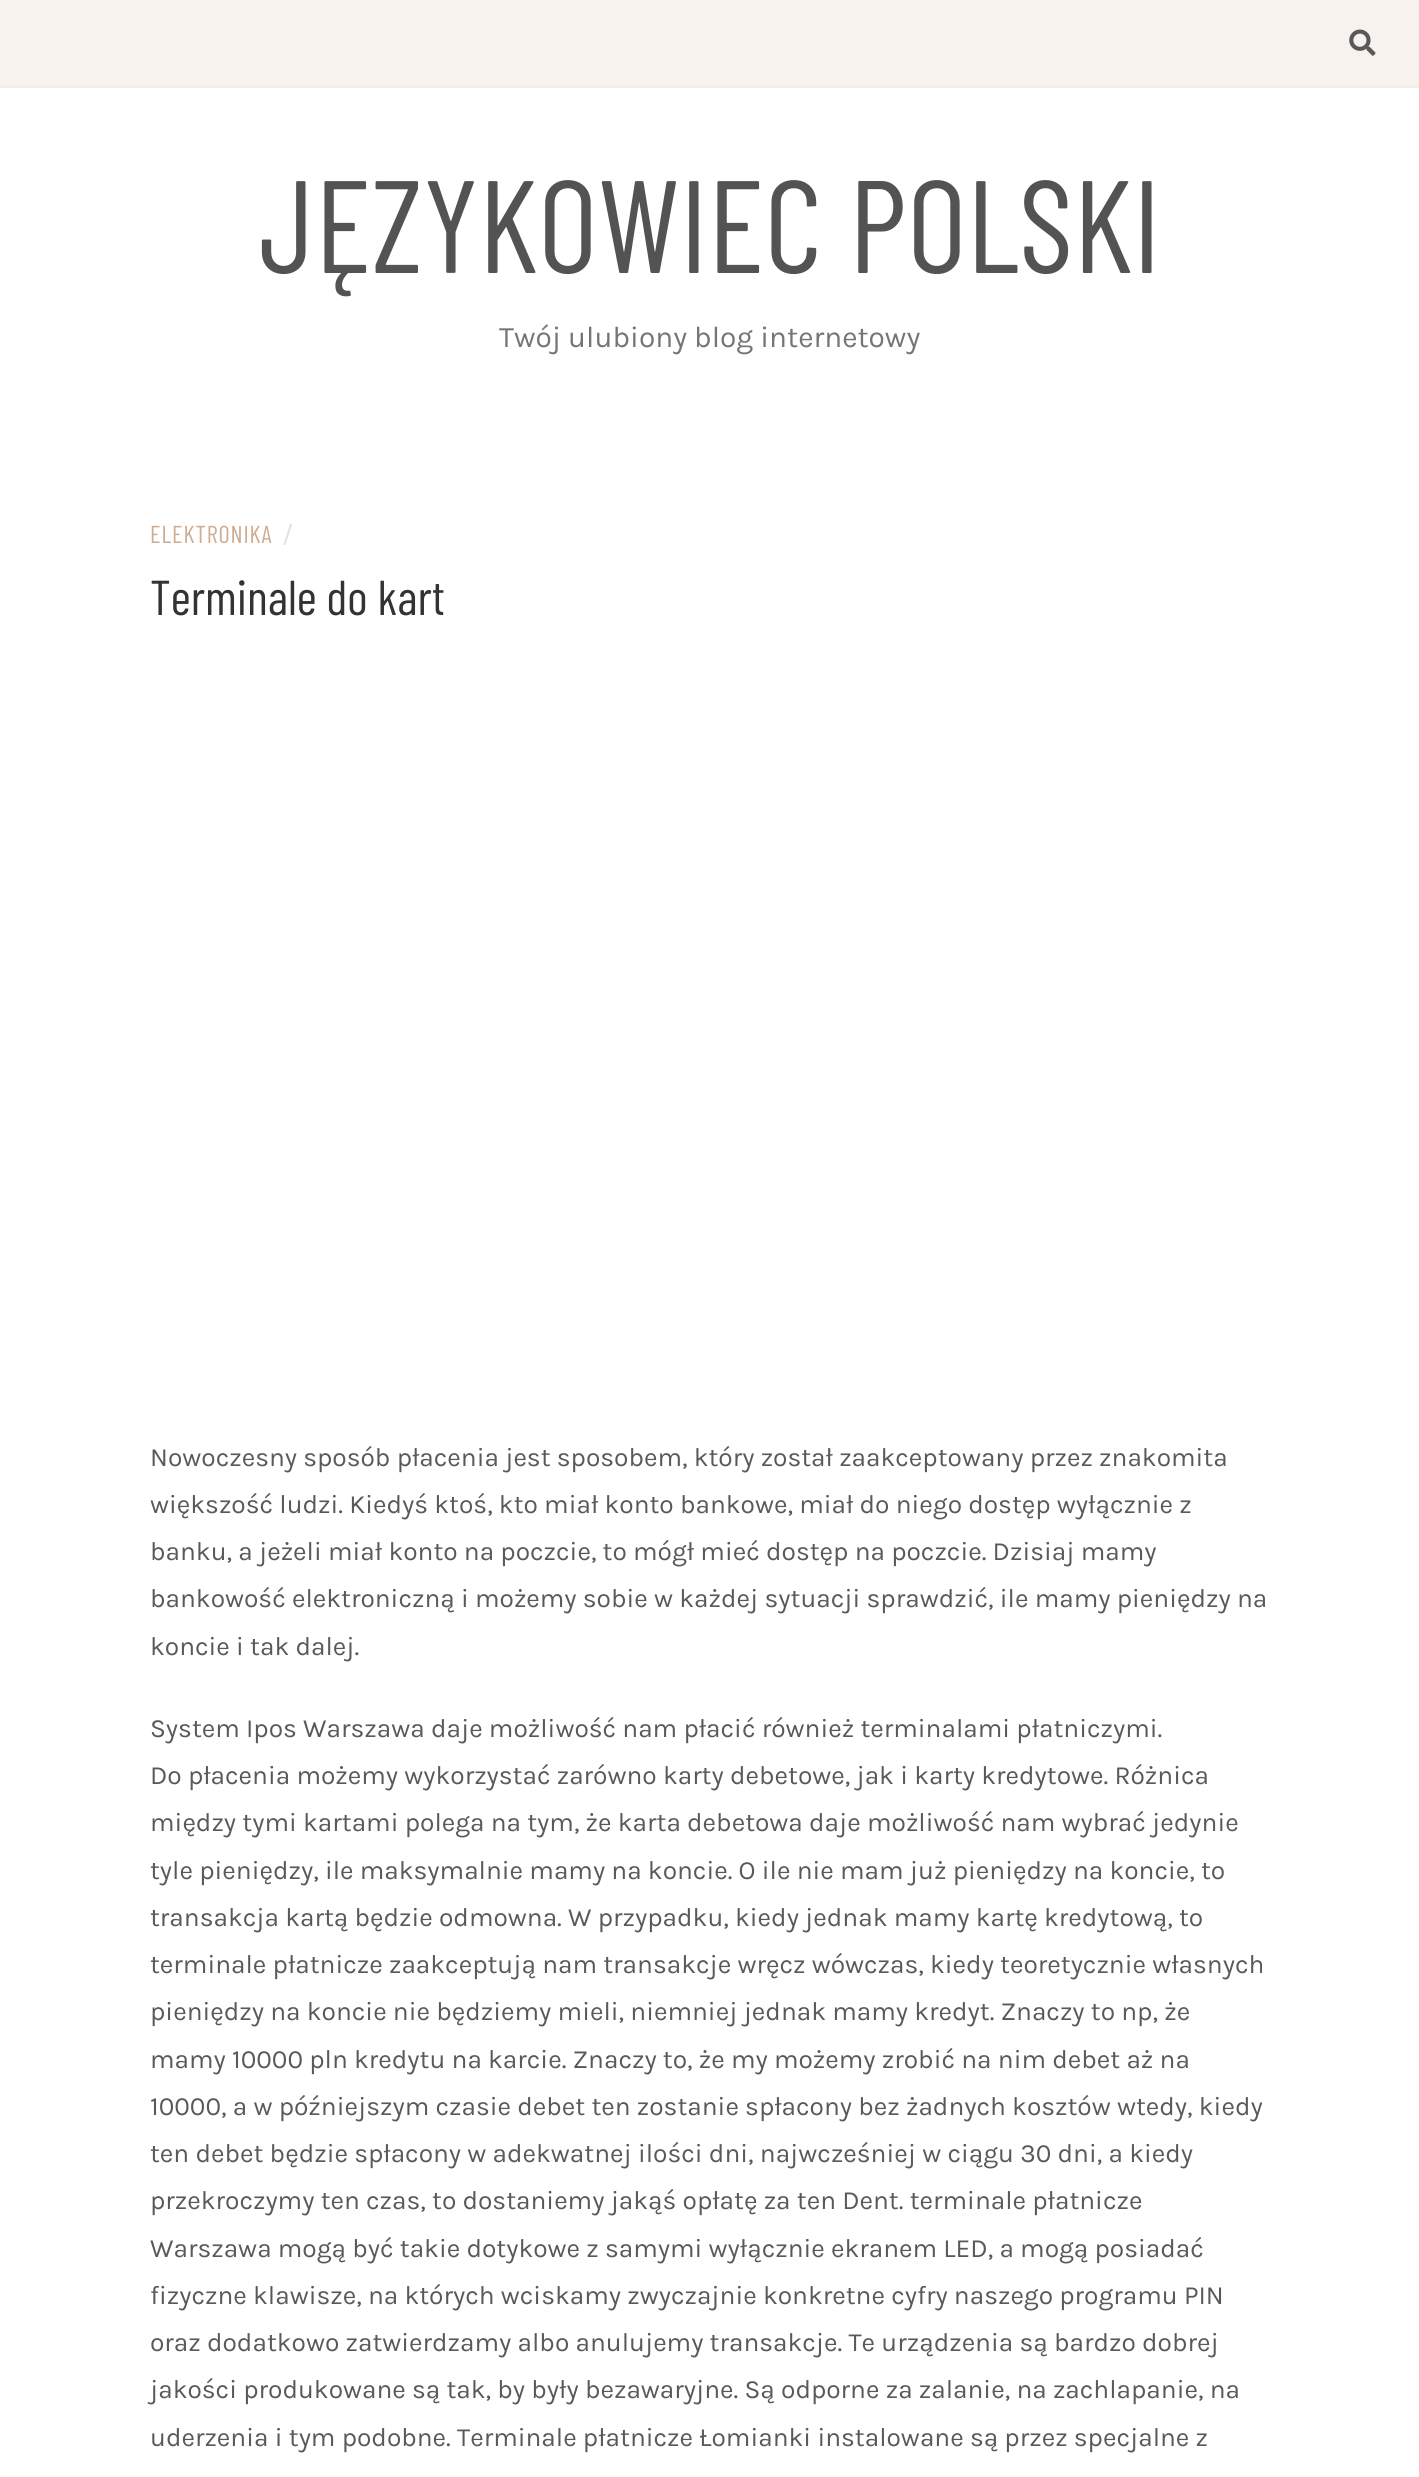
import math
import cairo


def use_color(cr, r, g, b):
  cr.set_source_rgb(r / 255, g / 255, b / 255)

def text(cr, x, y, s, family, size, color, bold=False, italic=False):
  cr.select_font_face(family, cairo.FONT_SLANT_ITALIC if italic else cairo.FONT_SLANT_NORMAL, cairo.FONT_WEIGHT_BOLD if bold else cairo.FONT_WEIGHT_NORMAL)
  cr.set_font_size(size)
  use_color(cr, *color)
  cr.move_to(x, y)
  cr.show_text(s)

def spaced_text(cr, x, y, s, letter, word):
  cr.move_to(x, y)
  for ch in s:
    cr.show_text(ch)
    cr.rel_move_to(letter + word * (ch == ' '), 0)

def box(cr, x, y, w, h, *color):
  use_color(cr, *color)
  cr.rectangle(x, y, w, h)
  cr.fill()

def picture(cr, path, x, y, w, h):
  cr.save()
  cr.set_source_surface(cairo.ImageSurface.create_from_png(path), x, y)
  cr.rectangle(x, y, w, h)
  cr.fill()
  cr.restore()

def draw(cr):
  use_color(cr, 255, 255, 255)
  cr.paint()
  box(cr, 0, 0, 1419, 86, 247, 242, 238)
  box(cr, 0, 86, 1419, 2, 238, 238, 238)
  picture(cr, "img_01.png", 1349, 29, 27, 27)
  text(cr, 259, 273, "JĘZYKOWIEC POLSKI", "Barlow Condensed", 131.25, (83, 83, 83))
  text(cr, 499, 347, "Twój ulubiony blog internetowy", "Karla", 29.75, (117, 117, 117))
  cr.select_font_face("Barlow Condensed")
  cr.set_font_size(24.5)
  use_color(cr, 206, 172, 146)
  spaced_text(cr, 150, 543, "ELEKTRONIKA", 0.9, 0)
  text(cr, 282, 543, "/", "Karla", 26.25, (225, 225, 225))
  text(cr, 150, 615, "Terminale do kart", "Barlow Condensed", 49, (51, 51, 51))
  text(cr, 150, 1466, "Nowoczesny sposób płacenia jest sposobem, który został zaakceptowany przez znakomita", "Karla", 26.25, (89, 89, 89))
  text(cr, 150, 1513, "większość ludzi. Kiedyś ktoś, kto miał konto bankowe, miał do niego dostęp wyłącznie z", "Karla", 26.25, (89, 89, 89))
  text(cr, 150, 1560, "banku, a jeżeli miał konto na poczcie, to mógł mieć dostęp na poczcie. Dzisiaj mamy", "Karla", 26.25, (89, 89, 89))
  text(cr, 150, 1607, "bankowość elektroniczną i możemy sobie w każdej sytuacji sprawdzić, ile mamy pieniędzy na", "Karla", 26.25, (89, 89, 89))
  text(cr, 150, 1655, "koncie i tak dalej.", "Karla", 26.25, (89, 89, 89))
  text(cr, 150, 1737, "System Ipos Warszawa daje możliwość nam płacić również terminalami płatniczymi.", "Karla", 26.25, (89, 89, 89))
  text(cr, 150, 1784, "Do płacenia możemy wykorzystać zarówno karty debetowe, jak i karty kredytowe. Różnica", "Karla", 26.25, (89, 89, 89))
  text(cr, 150, 1831, "między tymi kartami polega na tym, że karta debetowa daje możliwość nam wybrać jedynie", "Karla", 26.25, (89, 89, 89))
  text(cr, 150, 1879, "tyle pieniędzy, ile maksymalnie mamy na koncie. O ile nie mam już pieniędzy na koncie, to", "Karla", 26.25, (89, 89, 89))
  text(cr, 150, 1926, "transakcja kartą będzie odmowna. W przypadku, kiedy jednak mamy kartę kredytową, to", "Karla", 26.25, (89, 89, 89))
  text(cr, 150, 1973, "terminale płatnicze zaakceptują nam transakcje wręcz wówczas, kiedy teoretycznie własnych", "Karla", 26.25, (89, 89, 89))
  text(cr, 150, 2020, "pieniędzy na koncie nie będziemy mieli, niemniej jednak mamy kredyt. Znaczy to np, że", "Karla", 26.25, (89, 89, 89))
  text(cr, 150, 2068, "mamy 10000 pln kredytu na karcie. Znaczy to, że my możemy zrobić na nim debet aż na", "Karla", 26.25, (89, 89, 89))
  text(cr, 150, 2115, "10000, a w późniejszym czasie debet ten zostanie spłacony bez żadnych kosztów wtedy, kiedy", "Karla", 26.25, (89, 89, 89))
  text(cr, 150, 2162, "ten debet będzie spłacony w adekwatnej ilości dni, najwcześniej w ciągu 30 dni, a kiedy", "Karla", 26.25, (89, 89, 89))
  text(cr, 150, 2209, "przekroczymy ten czas, to dostaniemy jakąś opłatę za ten Dent. terminale płatnicze", "Karla", 26.25, (89, 89, 89))
  text(cr, 150, 2257, "Warszawa mogą być takie dotykowe z samymi wyłącznie ekranem LED, a mogą posiadać", "Karla", 26.25, (89, 89, 89))
  text(cr, 150, 2304, "fizyczne klawisze, na których wciskamy zwyczajnie konkretne cyfry naszego programu PIN", "Karla", 26.25, (89, 89, 89))
  text(cr, 150, 2351, "oraz dodatkowo zatwierdzamy albo anulujemy transakcje. Te urządzenia są bardzo dobrej", "Karla", 26.25, (89, 89, 89))
  text(cr, 150, 2398, "jakości produkowane są tak, by były bezawaryjne. Są odporne za zalanie, na zachlapanie, na", "Karla", 26.25, (89, 89, 89))
  text(cr, 150, 2446, "uderzenia i tym podobne. Terminale płatnicze Łomianki instalowane są przez specjalne z", "Karla", 26.25, (89, 89, 89))


surface = cairo.ImageSurface(cairo.FORMAT_RGB24, 1419, 2477)
cr = cairo.Context(surface)
options = cairo.FontOptions()
options.set_hint_metrics(cairo.HINT_METRICS_OFF)
options.set_hint_style(cairo.HINT_STYLE_NONE)
cr.set_font_options(options)
cr.set_miter_limit(4)
draw(cr)
surface.write_to_png("out.png")
